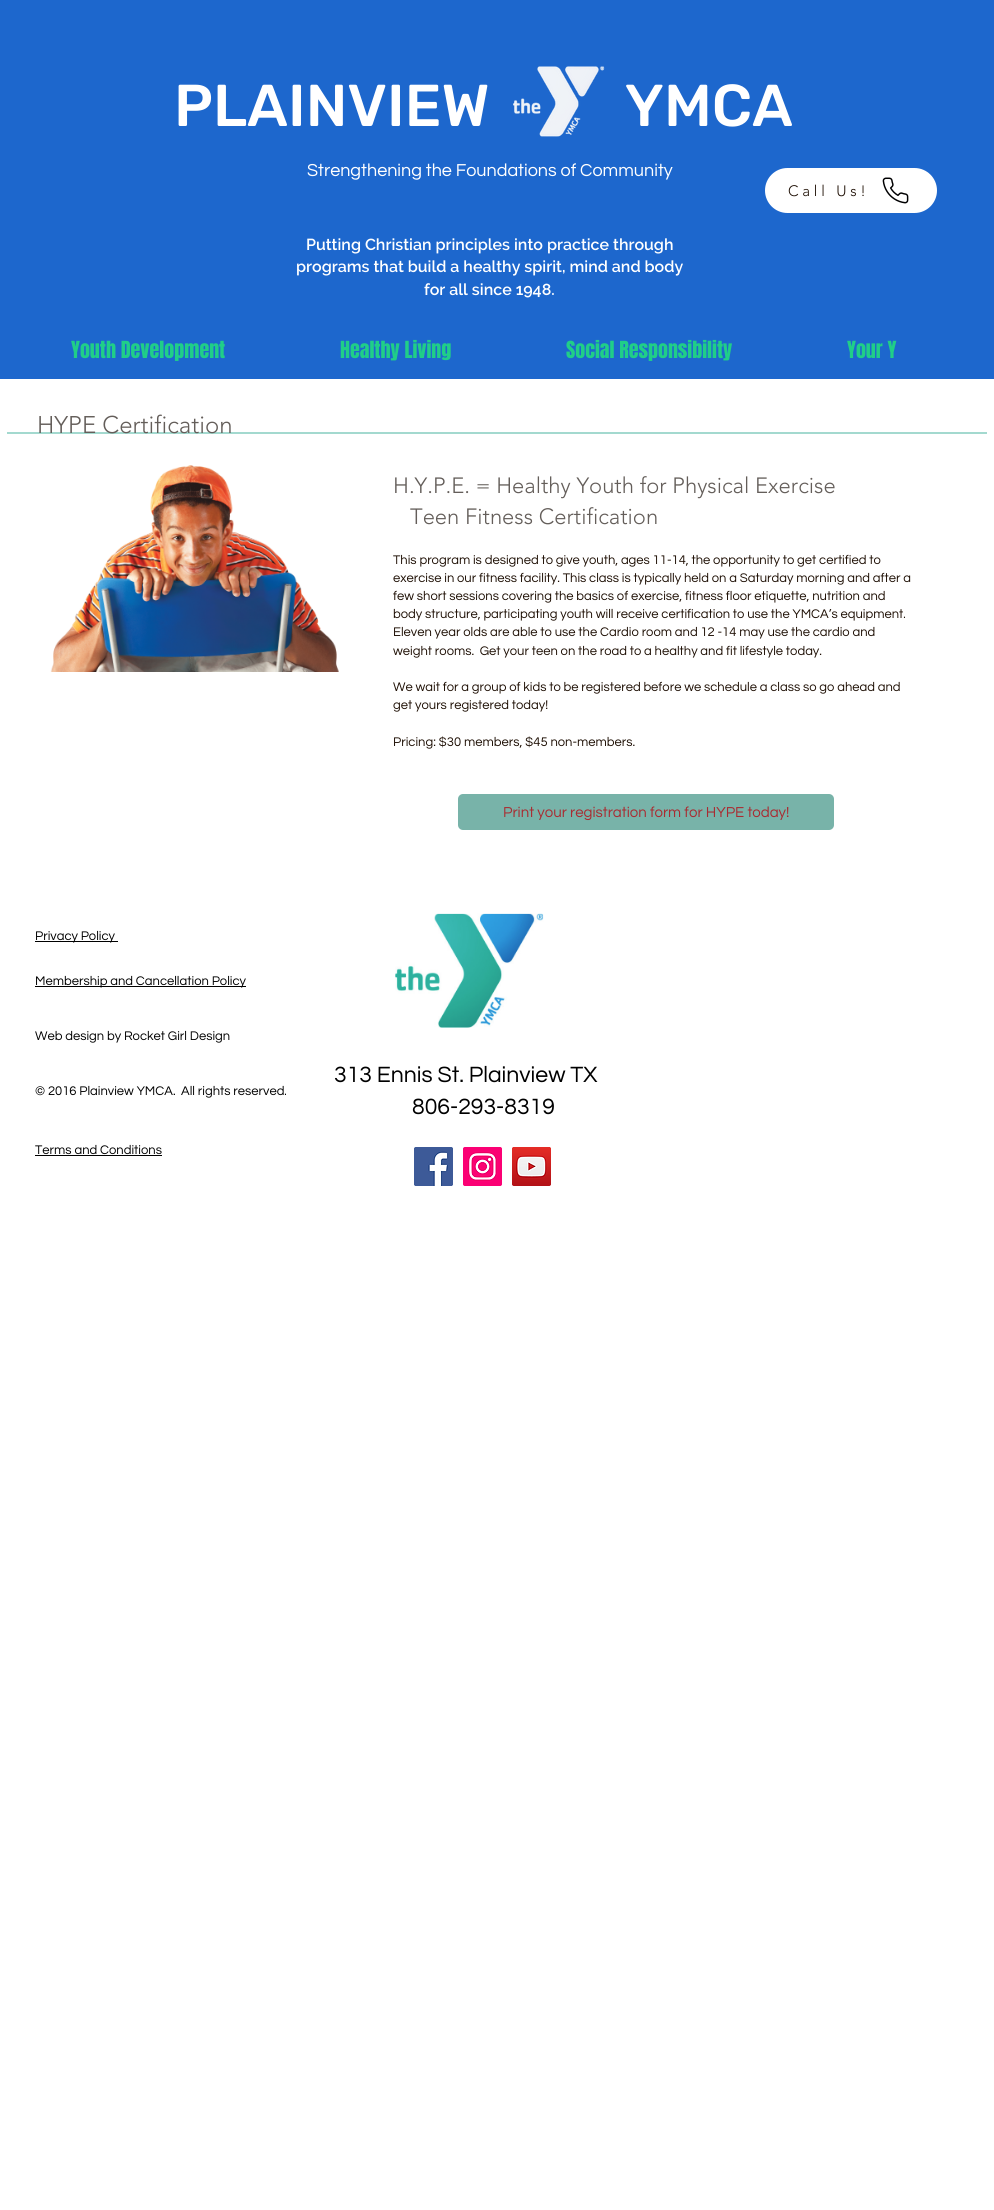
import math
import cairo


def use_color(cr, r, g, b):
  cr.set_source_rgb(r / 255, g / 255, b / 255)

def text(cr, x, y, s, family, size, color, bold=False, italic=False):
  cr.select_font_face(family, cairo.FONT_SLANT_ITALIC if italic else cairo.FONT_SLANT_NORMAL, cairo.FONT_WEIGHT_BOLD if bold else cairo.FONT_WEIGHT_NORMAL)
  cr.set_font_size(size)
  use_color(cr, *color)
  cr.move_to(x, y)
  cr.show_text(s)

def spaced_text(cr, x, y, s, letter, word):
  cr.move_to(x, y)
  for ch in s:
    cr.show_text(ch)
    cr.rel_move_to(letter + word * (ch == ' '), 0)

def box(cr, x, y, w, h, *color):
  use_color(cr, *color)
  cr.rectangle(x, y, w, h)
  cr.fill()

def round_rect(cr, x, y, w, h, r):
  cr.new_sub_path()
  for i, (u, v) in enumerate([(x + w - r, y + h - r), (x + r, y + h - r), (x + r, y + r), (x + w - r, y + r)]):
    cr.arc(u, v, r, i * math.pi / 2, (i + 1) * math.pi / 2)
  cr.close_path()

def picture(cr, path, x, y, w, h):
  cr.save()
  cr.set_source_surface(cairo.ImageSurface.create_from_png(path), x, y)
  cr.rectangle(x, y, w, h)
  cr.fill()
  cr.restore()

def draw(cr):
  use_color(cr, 255, 255, 255)
  cr.paint()
  box(cr, 0, 0, 994, 379, 29, 103, 205)
  use_color(cr, 255, 255, 255)
  round_rect(cr, 765, 168, 172, 45, 22.5)
  cr.fill()
  picture(cr, "img_02.png", 882, 177, 27, 27)
  box(cr, 7, 432, 980, 2, 163, 217, 207)
  picture(cr, "img_03.png", 50, 465, 289, 207)
  use_color(cr, 120, 179, 169)
  round_rect(cr, 457, 793, 378, 38, 6)
  cr.fill_preserve()
  use_color(cr, 255, 255, 255)
  cr.stroke()
  box(cr, 35, 941, 83, 1, 0, 0, 0)
  picture(cr, "img_04.png", 395, 913, 149, 115)
  box(cr, 35, 986, 211, 1, 0, 0, 0)
  box(cr, 35, 1155, 127, 1, 0, 0, 0)
  picture(cr, "img_05.png", 414, 1147, 39, 39)
  picture(cr, "img_06.png", 463, 1147, 39, 39)
  picture(cr, "img_07.png", 512, 1147, 39, 39)
  text(cr, 174, 126, "PLAINVIEW          YMCA", "Rubik Medium", 59, (255, 255, 255))
  picture(cr, "img_01.png", 513, 66, 92, 71)
  text(cr, 307, 176, "Strengthening the Foundations of Community", "Questrial", 18, (255, 255, 255))
  cr.select_font_face("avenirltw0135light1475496 Light")
  cr.set_font_size(15)
  use_color(cr, 29, 14, 3)
  spaced_text(cr, 788, 196, "Call Us!", 3.75, 0)
  text(cr, 306, 250, "Putting Christian principles into practice through", "Raleway SemiBold", 16, (255, 255, 255))
  text(cr, 296, 272, "programs that build a healthy spirit, mind and body", "Raleway SemiBold", 16, (255, 255, 255))
  text(cr, 424, 295, "for all since 1948.", "Raleway SemiBold", 16, (255, 255, 255))
  text(cr, 71, 358, "Youth Development", "Anton", 20, (32, 206, 136))
  text(cr, 340, 358, "Healthy Living", "Anton", 20, (32, 206, 136))
  text(cr, 566, 358, "Social Responsibility", "Anton", 20, (32, 206, 136))
  text(cr, 847, 358, "Your Y", "Anton", 20, (32, 206, 136))
  text(cr, 37, 433, "HYPE Certification", "avenirltw0135light1475496 Light", 24, (100, 94, 90))
  text(cr, 393, 493, "H.Y.P.E. = Healthy Youth for Physical Exercise", "avenirltw0135light1475496 Light", 22, (100, 94, 90))
  text(cr, 410, 524, "Teen Fitness Certification", "avenirltw0135light1475496 Light", 22, (100, 94, 90))
  text(cr, 393, 564, "This program is designed to give youth, ages 11-14, the opportunity to get certified to", "Questrial", 13, (29, 14, 3))
  text(cr, 393, 582, "exercise in our fitness facility. This class is typically held on a Saturday morning and after a", "Questrial", 13, (29, 14, 3))
  text(cr, 393, 600, "few short sessions covering the basics of exercise, fitness floor etiquette, nutrition and", "Questrial", 13, (29, 14, 3))
  text(cr, 393, 618, "body structure, participating youth will receive certification to use the YMCA’s equipment.", "Questrial", 13, (29, 14, 3))
  text(cr, 393, 636, "Eleven year olds are able to use the Cardio room and 12 -14 may use the cardio and", "Questrial", 13, (29, 14, 3))
  text(cr, 393, 655, "weight rooms.  Get your teen on the road to a healthy and fit lifestyle today.", "Questrial", 13, (29, 14, 3))
  text(cr, 393, 691, "We wait for a group of kids to be registered before we schedule a class so go ahead and", "Questrial", 13, (29, 14, 3))
  text(cr, 393, 709, "get yours registered today!", "Questrial", 13, (29, 14, 3))
  text(cr, 393, 746, "Pricing: $30 members, $45 non-members.", "Questrial", 13, (29, 14, 3))
  text(cr, 503, 817, "Print your registration form for HYPE today!", "Questrial", 15, (169, 43, 49))
  text(cr, 35, 940, "Privacy Policy", "Questrial", 13, (0, 0, 0))
  text(cr, 35, 985, "Membership and Cancellation Policy", "Questrial", 13, (0, 0, 0))
  text(cr, 35, 1040, "Web design by Rocket Girl Design", "Questrial", 13, (0, 0, 0))
  text(cr, 35, 1095, "© 2016 Plainview YMCA.  All rights reserved.", "Questrial", 13, (0, 0, 0))
  text(cr, 334, 1082, "313 Ennis St. Plainview TX", "Questrial", 23, (0, 0, 0))
  text(cr, 412, 1114, "806-293-8319", "Questrial", 23, (0, 0, 0))
  text(cr, 35, 1154, "Terms and Conditions", "Questrial", 13, (0, 0, 0))


surface = cairo.ImageSurface(cairo.FORMAT_RGB24, 994, 2210)
cr = cairo.Context(surface)
options = cairo.FontOptions()
options.set_hint_metrics(cairo.HINT_METRICS_OFF)
options.set_hint_style(cairo.HINT_STYLE_NONE)
cr.set_font_options(options)
cr.set_miter_limit(4)
draw(cr)
surface.write_to_png("out.png")
